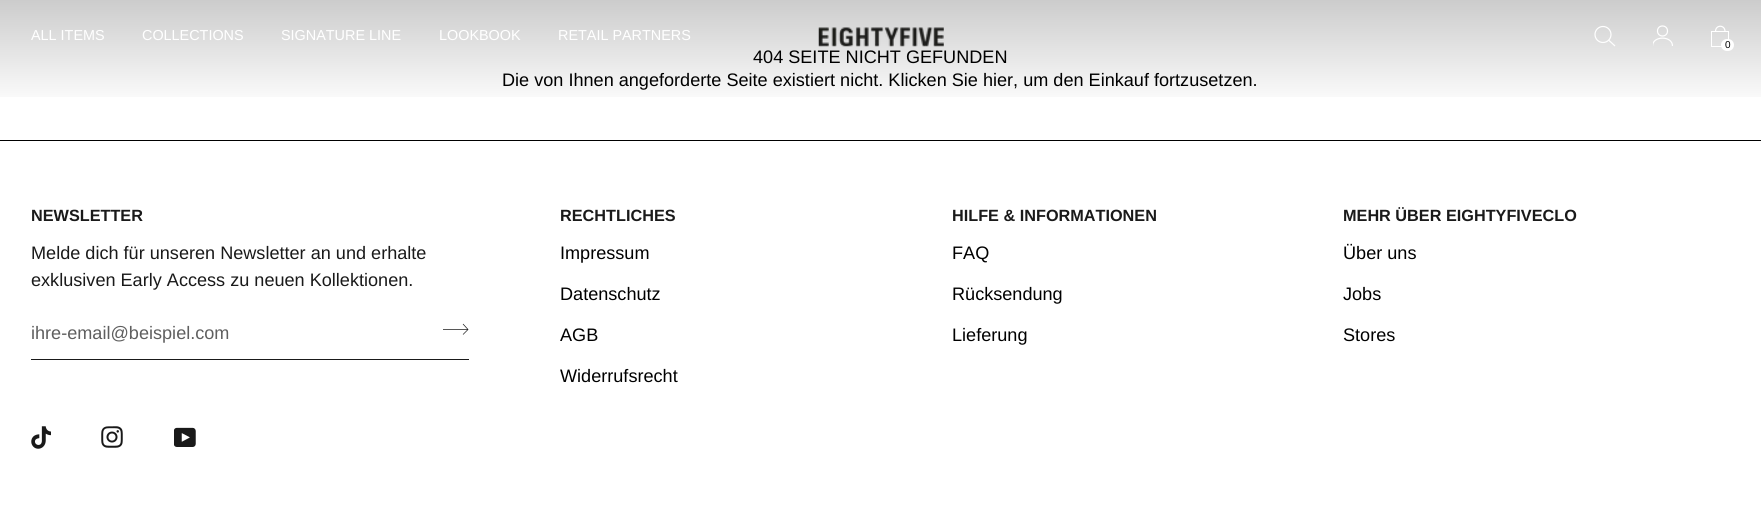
import math
import cairo


def use_color(cr, r, g, b):
  cr.set_source_rgb(r / 255, g / 255, b / 255)

def text(cr, x, y, s, family, size, color, bold=False, italic=False):
  cr.select_font_face(family, cairo.FONT_SLANT_ITALIC if italic else cairo.FONT_SLANT_NORMAL, cairo.FONT_WEIGHT_BOLD if bold else cairo.FONT_WEIGHT_NORMAL)
  cr.set_font_size(size)
  use_color(cr, *color)
  cr.move_to(x, y)
  cr.show_text(s)

def box(cr, x, y, w, h, *color):
  use_color(cr, *color)
  cr.rectangle(x, y, w, h)
  cr.fill()

def round_rect(cr, x, y, w, h, r):
  cr.new_sub_path()
  for i, (u, v) in enumerate([(x + w - r, y + h - r), (x + r, y + h - r), (x + r, y + r), (x + w - r, y + r)]):
    cr.arc(u, v, r, i * math.pi / 2, (i + 1) * math.pi / 2)
  cr.close_path()

def picture(cr, path, x, y, w, h):
  cr.save()
  cr.set_source_surface(cairo.ImageSurface.create_from_png(path), x, y)
  cr.rectangle(x, y, w, h)
  cr.fill()
  cr.restore()

def draw(cr):
  use_color(cr, 255, 255, 255)
  cr.paint()
  gradient = cairo.LinearGradient(881, 0, 881, 109)
  gradient.add_color_stop_rgba(0, 0, 0, 0, 0.2)
  gradient.add_color_stop_rgba(1, 0, 0, 0, 0)
  cr.set_source(gradient)
  cr.rectangle(0, 0, 1761, 97)
  cr.fill()
  picture(cr, "img_01.png", 818, 27, 126, 20)
  cr.new_path()
  cr.move_to(1615, 46)
  cr.line_to(1608.5, 40)
  use_color(cr, 255, 255, 255)
  cr.set_line_width(1.2)
  cr.stroke()
  cr.arc(1603, 34.5, 8, 0, 2 * math.pi)
  cr.stroke()
  cr.save()
  cr.rectangle(1653, 24, 20, 25)
  cr.clip()
  cr.new_path()
  cr.move_to(1652.5, 46)
  cr.curve_to(1652.5, 35.5, 1672.5, 35.5, 1672.5, 46)
  cr.stroke()
  cr.restore()
  cr.arc(1662.5, 31, 5, 0, 2 * math.pi)
  cr.stroke()
  cr.new_path()
  cr.move_to(1725, 31.5)
  cr.curve_to(1725, 24.5, 1715.5, 24.5, 1715.5, 31.5)
  cr.stroke()
  cr.rectangle(1711.5, 31.5, 17, 15)
  cr.set_line_width(1)
  cr.stroke()
  round_rect(cr, 1721, 39, 13, 12, 6)
  cr.fill()
  box(cr, 0, 140, 1761, 1, 0, 0, 0)
  box(cr, 31, 359, 438, 1, 26, 26, 26)
  cr.new_path()
  cr.move_to(463, 324)
  cr.line_to(468, 329.5)
  cr.line_to(463, 334.5)
  cr.move_to(443, 329.5)
  cr.line_to(468, 329.5)
  cr.set_line_width(0.7)
  cr.stroke()
  picture(cr, "img_02.png", 31, 426, 20, 23)
  picture(cr, "img_03.png", 101, 426, 22, 22)
  picture(cr, "img_04.png", 174, 427, 22, 20)
  text(cr, 31, 40, "ALL ITEMS", "Liberation Sans", 14.4, (255, 255, 255))
  text(cr, 142, 40, "COLLECTIONS", "Liberation Sans", 14.4, (255, 255, 255))
  text(cr, 281, 40, "SIGNATURE LINE", "Liberation Sans", 14.4, (255, 255, 255))
  text(cr, 439, 40, "LOOKBOOK", "Liberation Sans", 14.4, (255, 255, 255))
  text(cr, 558, 40, "RETAIL PARTNERS", "Liberation Sans", 14.4, (255, 255, 255))
  text(cr, 1725, 48, "0", "Liberation Sans", 10, (0, 0, 0))
  text(cr, 753, 63, "404 SEITE NICHT GEFUNDEN", "Liberation Sans", 18.1, (0, 0, 0))
  text(cr, 502, 86, "Die von Ihnen angeforderte Seite existiert nicht. Klicken Sie hier, um den Einkauf fortzusetzen.", "Liberation Sans", 18.1, (0, 0, 0))
  text(cr, 31, 221, "NEWSLETTER", "Liberation Sans", 16.25, (26, 26, 26), bold=True)
  text(cr, 31, 259, "Melde dich für unseren Newsletter an und erhalte", "Liberation Sans", 18.1, (26, 26, 26))
  text(cr, 31, 286, "exklusiven Early Access zu neuen Kollektionen.", "Liberation Sans", 18.1, (26, 26, 26))
  text(cr, 31, 339, "ihre-email@beispiel.com", "Liberation Sans", 18.1, (95, 95, 95))
  text(cr, 560, 221, "RECHTLICHES", "Liberation Sans", 16.25, (26, 26, 26), bold=True)
  text(cr, 560, 259, "Impressum", "Liberation Sans", 18.1, (0, 0, 0))
  text(cr, 560, 300, "Datenschutz", "Liberation Sans", 18.1, (0, 0, 0))
  text(cr, 560, 341, "AGB", "Liberation Sans", 18.1, (0, 0, 0))
  text(cr, 560, 382, "Widerrufsrecht", "Liberation Sans", 18.1, (0, 0, 0))
  text(cr, 952, 221, "HILFE & INFORMATIONEN", "Liberation Sans", 16.25, (26, 26, 26), bold=True)
  text(cr, 952, 259, "FAQ", "Liberation Sans", 18.1, (0, 0, 0))
  text(cr, 952, 300, "Rücksendung", "Liberation Sans", 18.1, (0, 0, 0))
  text(cr, 952, 341, "Lieferung", "Liberation Sans", 18.1, (0, 0, 0))
  text(cr, 1343, 221, "MEHR ÜBER EIGHTYFIVECLO", "Liberation Sans", 16.25, (26, 26, 26), bold=True)
  text(cr, 1343, 259, "Über uns", "Liberation Sans", 18.1, (0, 0, 0))
  text(cr, 1343, 300, "Jobs", "Liberation Sans", 18.1, (0, 0, 0))
  text(cr, 1343, 341, "Stores", "Liberation Sans", 18.1, (0, 0, 0))


surface = cairo.ImageSurface(cairo.FORMAT_RGB24, 1761, 505)
cr = cairo.Context(surface)
options = cairo.FontOptions()
options.set_hint_metrics(cairo.HINT_METRICS_OFF)
options.set_hint_style(cairo.HINT_STYLE_NONE)
cr.set_font_options(options)
cr.set_miter_limit(4)
draw(cr)
surface.write_to_png("out.png")
